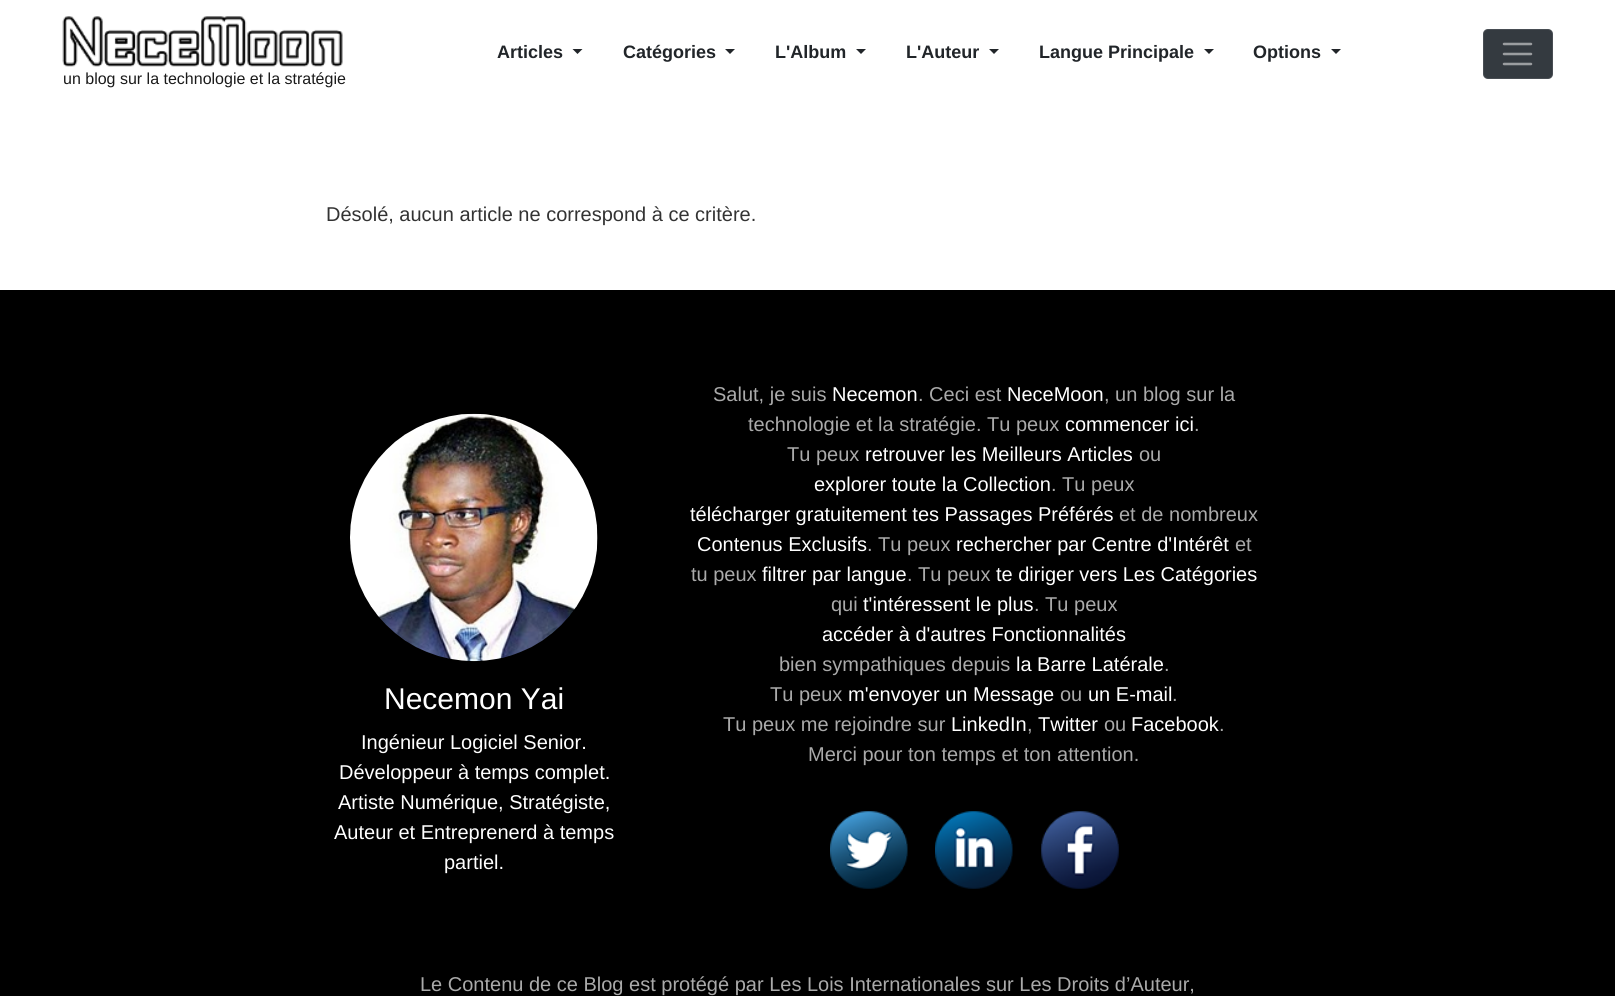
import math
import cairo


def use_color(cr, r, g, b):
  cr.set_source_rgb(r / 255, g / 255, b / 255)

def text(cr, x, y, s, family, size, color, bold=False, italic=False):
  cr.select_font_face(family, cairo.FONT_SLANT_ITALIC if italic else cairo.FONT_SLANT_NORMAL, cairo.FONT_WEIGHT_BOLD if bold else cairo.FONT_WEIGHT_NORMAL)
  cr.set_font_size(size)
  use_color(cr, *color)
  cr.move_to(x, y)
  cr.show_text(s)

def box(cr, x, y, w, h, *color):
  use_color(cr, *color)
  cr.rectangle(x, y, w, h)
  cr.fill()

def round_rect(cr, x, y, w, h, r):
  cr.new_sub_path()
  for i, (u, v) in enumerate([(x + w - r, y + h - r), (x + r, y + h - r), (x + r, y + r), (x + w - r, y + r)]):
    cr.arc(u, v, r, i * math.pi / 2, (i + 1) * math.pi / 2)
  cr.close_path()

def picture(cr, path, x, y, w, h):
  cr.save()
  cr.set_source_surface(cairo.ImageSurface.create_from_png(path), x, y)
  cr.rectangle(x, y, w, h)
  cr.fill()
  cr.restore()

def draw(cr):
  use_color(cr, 255, 255, 255)
  cr.paint()
  use_color(cr, 33, 37, 41)
  cr.new_path()
  cr.move_to(572.5, 49)
  cr.line_to(582.5, 49)
  cr.line_to(577.5, 54)
  cr.close_path()
  cr.fill()
  cr.new_path()
  cr.move_to(725, 49)
  cr.line_to(735, 49)
  cr.line_to(730, 54)
  cr.close_path()
  cr.fill()
  cr.new_path()
  cr.move_to(856, 49)
  cr.line_to(866, 49)
  cr.line_to(861, 54)
  cr.close_path()
  cr.fill()
  cr.new_path()
  cr.move_to(989, 49)
  cr.line_to(999, 49)
  cr.line_to(994, 54)
  cr.close_path()
  cr.fill()
  cr.new_path()
  cr.move_to(1204, 49)
  cr.line_to(1214, 49)
  cr.line_to(1209, 54)
  cr.close_path()
  cr.fill()
  cr.new_path()
  cr.move_to(1331, 49)
  cr.line_to(1341, 49)
  cr.line_to(1336, 54)
  cr.close_path()
  cr.fill()
  use_color(cr, 52, 58, 64)
  round_rect(cr, 1483, 29, 70, 50, 5)
  cr.fill()
  round_rect(cr, 1483.5, 29.5, 69, 49, 4.5)
  cr.set_source_rgba(1, 1, 1, 0.1)
  cr.set_line_width(1)
  cr.stroke()
  cr.new_path()
  cr.move_to(1504, 44)
  cr.line_to(1531, 44)
  cr.move_to(1504, 54)
  cr.line_to(1531, 54)
  cr.move_to(1504, 64)
  cr.line_to(1531, 64)
  use_color(cr, 154, 157, 160)
  cr.set_line_width(2.5)
  cr.set_line_cap(cairo.LINE_CAP_ROUND)
  cr.stroke()
  picture(cr, "img_01.png", 62, 16, 281, 51)
  box(cr, 0, 290, 1615, 706, 0, 0, 0)
  picture(cr, "img_02.png", 350, 413, 248, 249)
  picture(cr, "img_03.png", 830, 811, 78, 78)
  picture(cr, "img_04.png", 935, 811, 78, 78)
  picture(cr, "img_05.png", 1041, 811, 78, 78)
  text(cr, 497, 58, "Articles", "Liberation Sans", 18, (33, 37, 41), bold=True)
  text(cr, 623, 58, "Catégories", "Liberation Sans", 18, (33, 37, 41), bold=True)
  text(cr, 775, 58, "L'Album", "Liberation Sans", 18, (33, 37, 41), bold=True)
  text(cr, 906, 58, "L'Auteur", "Liberation Sans", 18, (33, 37, 41), bold=True)
  text(cr, 1039, 58, "Langue Principale", "Liberation Sans", 18, (33, 37, 41), bold=True)
  text(cr, 1253, 58, "Options", "Liberation Sans", 18, (33, 37, 41), bold=True)
  text(cr, 63, 84, "un blog sur la technologie et la stratégie", "Liberation Sans", 16, (26, 26, 26))
  text(cr, 326, 221, "Désolé, aucun article ne correspond à ce critère.", "Liberation Sans", 20, (51, 51, 51))
  text(cr, 384, 709, "Necemon Yai", "Liberation Sans", 30, (255, 255, 255))
  text(cr, 361, 749, "Ingénieur Logiciel Senior.", "Liberation Sans", 20, (255, 255, 255))
  text(cr, 339, 779, "Développeur à temps complet.", "Liberation Sans", 20, (255, 255, 255))
  text(cr, 338, 809, "Artiste Numérique, Stratégiste,", "Liberation Sans", 20, (255, 255, 255))
  text(cr, 334, 839, "Auteur et Entreprenerd à temps", "Liberation Sans", 20, (255, 255, 255))
  text(cr, 444, 869, "partiel.", "Liberation Sans", 20, (255, 255, 255))
  text(cr, 713, 401, "Salut, je suis", "Liberation Sans", 20, (170, 170, 170))
  text(cr, 832, 401, "Necemon", "Liberation Sans", 20, (255, 255, 255))
  text(cr, 918, 401, ". Ceci est", "Liberation Sans", 20, (170, 170, 170))
  text(cr, 1007, 401, "NeceMoon", "Liberation Sans", 20, (255, 255, 255))
  text(cr, 1104, 401, ", un blog sur la", "Liberation Sans", 20, (170, 170, 170))
  text(cr, 748, 431, "technologie et la stratégie. Tu peux", "Liberation Sans", 20, (170, 170, 170))
  text(cr, 1065, 431, "commencer ici", "Liberation Sans", 20, (255, 255, 255))
  text(cr, 1194, 431, ".", "Liberation Sans", 20, (170, 170, 170))
  text(cr, 787, 461, "Tu peux", "Liberation Sans", 20, (170, 170, 170))
  text(cr, 865, 461, "retrouver les Meilleurs Articles", "Liberation Sans", 20, (255, 255, 255))
  text(cr, 1139, 461, "ou", "Liberation Sans", 20, (170, 170, 170))
  text(cr, 814, 491, "explorer toute la Collection", "Liberation Sans", 20, (255, 255, 255))
  text(cr, 1051, 491, ". Tu peux", "Liberation Sans", 20, (170, 170, 170))
  text(cr, 690, 521, "télécharger gratuitement tes Passages Préférés", "Liberation Sans", 20, (255, 255, 255))
  text(cr, 1119, 521, "et de nombreux", "Liberation Sans", 20, (170, 170, 170))
  text(cr, 697, 551, "Contenus Exclusifs", "Liberation Sans", 20, (255, 255, 255))
  text(cr, 867, 551, ". Tu peux", "Liberation Sans", 20, (170, 170, 170))
  text(cr, 956, 551, "rechercher par Centre d'Intérêt", "Liberation Sans", 20, (255, 255, 255))
  text(cr, 1235, 551, "et", "Liberation Sans", 20, (170, 170, 170))
  text(cr, 691, 581, "tu peux", "Liberation Sans", 20, (170, 170, 170))
  text(cr, 762, 581, "filtrer par langue", "Liberation Sans", 20, (255, 255, 255))
  text(cr, 907, 581, ". Tu peux", "Liberation Sans", 20, (170, 170, 170))
  text(cr, 996, 581, "te diriger vers Les Catégories", "Liberation Sans", 20, (255, 255, 255))
  text(cr, 831, 611, "qui", "Liberation Sans", 20, (170, 170, 170))
  text(cr, 863, 611, "t'intéressent le plus", "Liberation Sans", 20, (255, 255, 255))
  text(cr, 1034, 611, ". Tu peux", "Liberation Sans", 20, (170, 170, 170))
  text(cr, 822, 641, "accéder à d'autres Fonctionnalités", "Liberation Sans", 20, (255, 255, 255))
  text(cr, 779, 671, "bien sympathiques depuis", "Liberation Sans", 20, (170, 170, 170))
  text(cr, 1016, 671, "la Barre Latérale", "Liberation Sans", 20, (255, 255, 255))
  text(cr, 1164, 671, ".", "Liberation Sans", 20, (170, 170, 170))
  text(cr, 770, 701, "Tu peux", "Liberation Sans", 20, (170, 170, 170))
  text(cr, 848, 701, "m'envoyer un Message", "Liberation Sans", 20, (255, 255, 255))
  text(cr, 1060, 701, "ou", "Liberation Sans", 20, (170, 170, 170))
  text(cr, 1088, 701, "un E-mail", "Liberation Sans", 20, (255, 255, 255))
  text(cr, 1172, 701, ".", "Liberation Sans", 20, (170, 170, 170))
  text(cr, 723, 731, "Tu peux me rejoindre sur", "Liberation Sans", 20, (170, 170, 170))
  text(cr, 951, 731, "LinkedIn", "Liberation Sans", 20, (255, 255, 255))
  text(cr, 1027, 731, ",", "Liberation Sans", 20, (170, 170, 170))
  text(cr, 1038, 731, "Twitter", "Liberation Sans", 20, (255, 255, 255))
  text(cr, 1104, 731, "ou", "Liberation Sans", 20, (170, 170, 170))
  text(cr, 1131, 731, "Facebook", "Liberation Sans", 20, (255, 255, 255))
  text(cr, 1219, 731, ".", "Liberation Sans", 20, (170, 170, 170))
  text(cr, 808, 761, "Merci pour ton temps et ton attention.", "Liberation Sans", 20, (170, 170, 170))
  text(cr, 420, 991, "Le Contenu de ce Blog est protégé par Les Lois Internationales sur Les Droits d’Auteur,", "Liberation Sans", 20, (170, 170, 170))


surface = cairo.ImageSurface(cairo.FORMAT_RGB24, 1615, 996)
cr = cairo.Context(surface)
options = cairo.FontOptions()
options.set_hint_metrics(cairo.HINT_METRICS_OFF)
options.set_hint_style(cairo.HINT_STYLE_NONE)
cr.set_font_options(options)
cr.set_miter_limit(4)
draw(cr)
surface.write_to_png("out.png")
